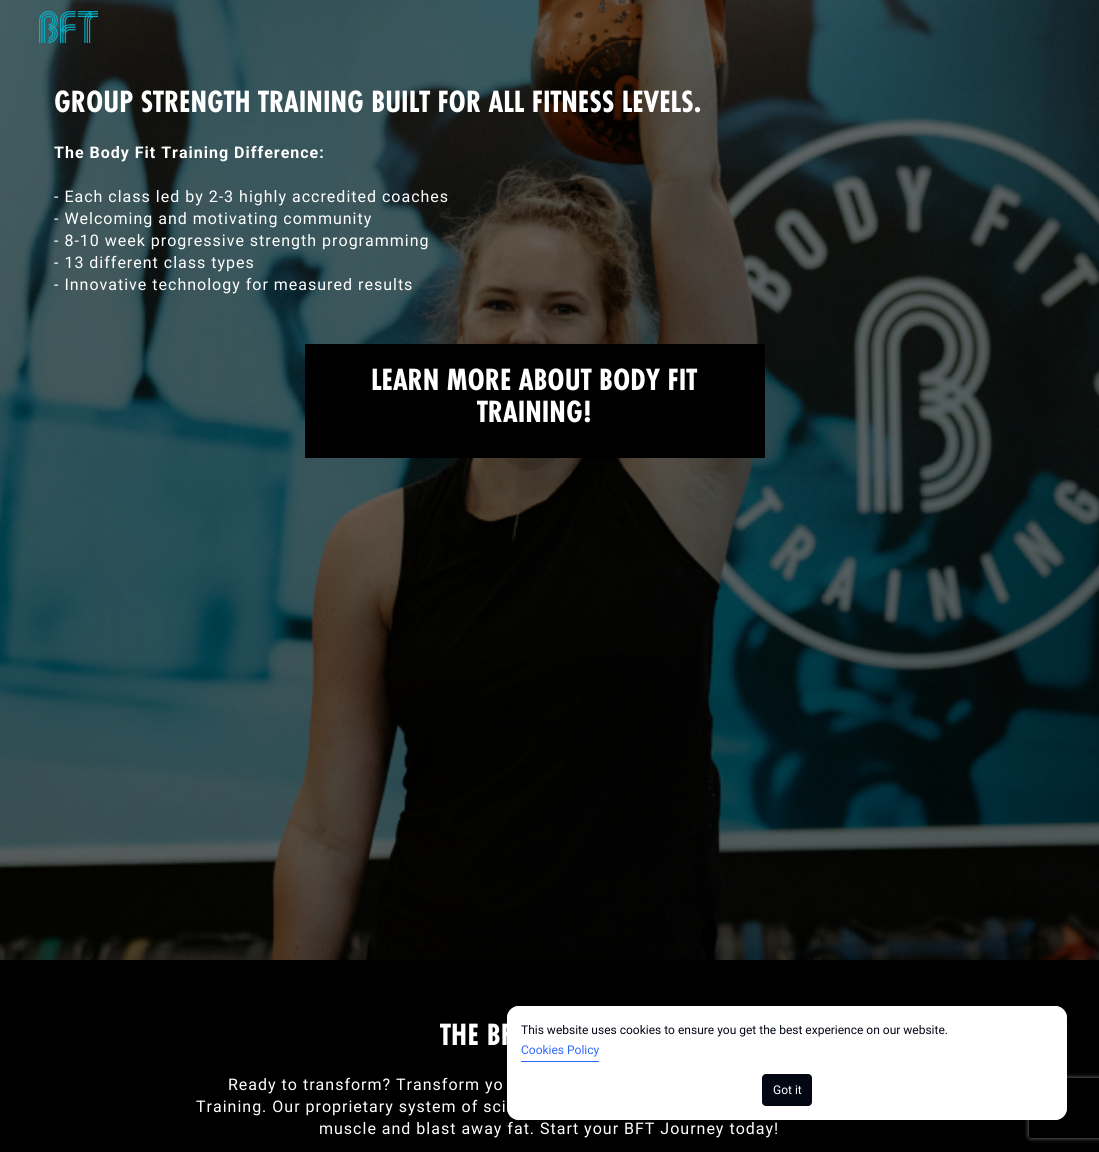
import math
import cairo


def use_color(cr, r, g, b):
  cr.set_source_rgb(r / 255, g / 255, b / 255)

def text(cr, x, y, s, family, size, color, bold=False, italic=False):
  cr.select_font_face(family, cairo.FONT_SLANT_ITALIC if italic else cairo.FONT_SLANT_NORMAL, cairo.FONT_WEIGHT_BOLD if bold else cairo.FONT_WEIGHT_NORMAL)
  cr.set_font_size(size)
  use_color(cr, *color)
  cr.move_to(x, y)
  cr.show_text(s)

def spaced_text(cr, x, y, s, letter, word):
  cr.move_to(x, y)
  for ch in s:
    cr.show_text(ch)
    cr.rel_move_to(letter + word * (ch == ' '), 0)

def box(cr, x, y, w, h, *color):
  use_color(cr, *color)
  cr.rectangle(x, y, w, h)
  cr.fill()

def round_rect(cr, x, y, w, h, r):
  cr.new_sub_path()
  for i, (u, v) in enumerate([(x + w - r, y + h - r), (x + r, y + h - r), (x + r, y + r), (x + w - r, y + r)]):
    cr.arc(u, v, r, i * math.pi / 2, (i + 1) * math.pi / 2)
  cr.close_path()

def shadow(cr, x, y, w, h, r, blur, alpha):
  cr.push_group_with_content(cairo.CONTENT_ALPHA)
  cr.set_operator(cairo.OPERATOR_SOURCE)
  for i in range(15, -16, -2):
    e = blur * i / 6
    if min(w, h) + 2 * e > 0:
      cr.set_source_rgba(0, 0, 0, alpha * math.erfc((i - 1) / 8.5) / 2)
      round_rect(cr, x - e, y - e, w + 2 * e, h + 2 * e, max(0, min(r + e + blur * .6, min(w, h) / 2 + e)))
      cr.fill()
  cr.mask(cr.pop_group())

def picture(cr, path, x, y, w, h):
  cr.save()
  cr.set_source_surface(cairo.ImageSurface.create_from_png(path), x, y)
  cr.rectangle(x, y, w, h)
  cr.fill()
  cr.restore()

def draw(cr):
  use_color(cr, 255, 255, 255)
  cr.paint()
  picture(cr, "img_02.png", 0, 0, 1099, 960)
  picture(cr, "img_01.png", 39, 11, 59, 32)
  box(cr, 305, 344, 460, 114, 0, 0, 0)
  box(cr, 0, 960, 1099, 192, 0, 0, 0)
  use_color(cr, 0, 0, 0)
  shadow(cr, 507, 1014, 560, 114, 12, 14, 0.28)
  cr.save()
  cr.set_fill_rule(cairo.FILL_RULE_EVEN_ODD)
  cr.new_path()
  cr.move_to(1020, 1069)
  cr.line_to(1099, 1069)
  cr.line_to(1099, 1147)
  cr.line_to(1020, 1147)
  cr.close_path()
  cr.move_to(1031, 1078)
  cr.line_to(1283, 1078)
  cr.curve_to(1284, 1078, 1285, 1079, 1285, 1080)
  cr.line_to(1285, 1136)
  cr.curve_to(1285, 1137, 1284, 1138, 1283, 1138)
  cr.line_to(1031, 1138)
  cr.curve_to(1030, 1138, 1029, 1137, 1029, 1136)
  cr.line_to(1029, 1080)
  cr.curve_to(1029, 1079, 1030, 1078, 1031, 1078)
  cr.close_path()
  cr.clip()
  use_color(cr, 128, 128, 128)
  shadow(cr, 1029, 1078, 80, 60, 2, 2.5, 1)
  cr.restore()
  use_color(cr, 255, 255, 255)
  round_rect(cr, 507, 1006, 560, 114, 12)
  cr.fill()
  text(cr, 54, 112, "GROUP STRENGTH TRAINING BUILT FOR ALL FITNESS LEVELS.", "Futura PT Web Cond", 32, (255, 255, 255), bold=True)
  cr.select_font_face("Roboto", cairo.FONT_SLANT_NORMAL, cairo.FONT_WEIGHT_BOLD)
  cr.set_font_size(16)
  spaced_text(cr, 54, 158, "The Body Fit Training Difference:", 1, 0)
  cr.select_font_face("Roboto")
  spaced_text(cr, 54, 202, "- Each class led by 2-3 highly accredited coaches", 1, 0)
  spaced_text(cr, 54, 224, "- Welcoming and motivating community", 1, 0)
  spaced_text(cr, 54, 246, "- 8-10 week progressive strength programming", 1, 0)
  spaced_text(cr, 54, 268, "- 13 different class types", 1, 0)
  spaced_text(cr, 54, 290, "- Innovative technology for measured results", 1, 0)
  text(cr, 371, 390, "LEARN MORE ABOUT BODY FIT", "Futura PT Web Cond", 32, (255, 255, 255), bold=True)
  text(cr, 477, 422, "TRAINING!", "Futura PT Web Cond", 32, (255, 255, 255), bold=True)
  spaced_text(cr, 440, 1045, "THE BF", 0.25, 0)
  cr.select_font_face("Roboto")
  cr.set_font_size(16)
  spaced_text(cr, 228, 1090, "Ready to transform? Transform yo", 1, 0)
  spaced_text(cr, 196, 1112, "Training. Our proprietary system of sci", 1, 0)
  spaced_text(cr, 319, 1134, "muscle and blast away fat. Start your BFT Journey today!", 1, 0)
  cr.set_source_rgba(1, 1, 1, 0.9)
  round_rect(cr, 507, 1006, 560, 114, 12)
  cr.fill()
  text(cr, 521, 1034, "This website uses cookies to ensure you get the best experience on our website.", "Roboto", 12, (3, 7, 20))
  box(cr, 521, 1061, 78, 1, 46, 105, 255)
  text(cr, 521, 1054, "Cookies Policy", "Roboto", 12, (46, 105, 255))
  use_color(cr, 3, 7, 20)
  round_rect(cr, 762.5, 1074.5, 49, 31, 3.5)
  cr.fill_preserve()
  cr.set_line_width(1)
  cr.stroke()
  text(cr, 773, 1094, "Got it", "Roboto", 12, (255, 255, 255))


surface = cairo.ImageSurface(cairo.FORMAT_RGB24, 1099, 1152)
cr = cairo.Context(surface)
options = cairo.FontOptions()
options.set_hint_metrics(cairo.HINT_METRICS_OFF)
options.set_hint_style(cairo.HINT_STYLE_NONE)
cr.set_font_options(options)
cr.set_miter_limit(4)
draw(cr)
surface.write_to_png("out.png")
